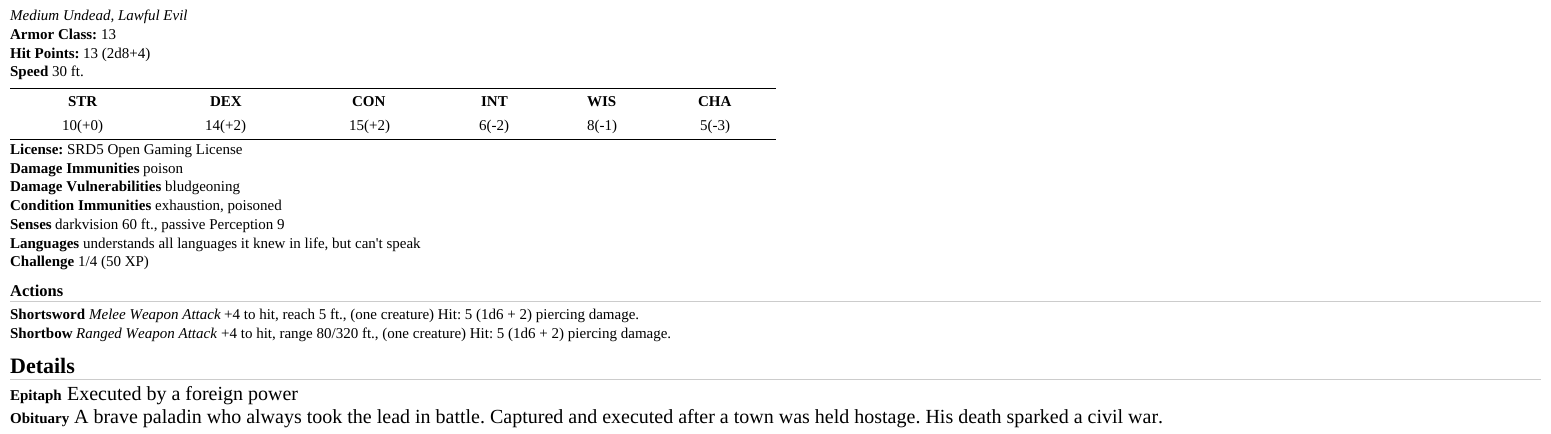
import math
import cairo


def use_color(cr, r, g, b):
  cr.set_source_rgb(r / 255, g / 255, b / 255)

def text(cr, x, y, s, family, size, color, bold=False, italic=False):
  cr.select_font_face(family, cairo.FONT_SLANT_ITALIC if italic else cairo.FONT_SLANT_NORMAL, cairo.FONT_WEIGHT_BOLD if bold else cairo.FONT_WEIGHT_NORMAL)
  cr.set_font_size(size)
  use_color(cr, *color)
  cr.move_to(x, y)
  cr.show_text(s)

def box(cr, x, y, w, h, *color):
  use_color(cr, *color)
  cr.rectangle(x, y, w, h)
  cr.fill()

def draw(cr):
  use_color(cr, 255, 255, 255)
  cr.paint()
  box(cr, 10, 88, 766, 1, 0, 0, 0)
  box(cr, 10, 139, 766, 1, 0, 0, 0)
  box(cr, 10, 301, 1531, 1, 204, 204, 204)
  box(cr, 10, 379, 1531, 1, 204, 204, 204)
  text(cr, 10, 20, "Medium Undead, Lawful Evil", "Liberation Serif", 15, (0, 0, 0), italic=True)
  text(cr, 10, 39, "Armor Class:", "Liberation Serif", 15, (0, 0, 0), bold=True)
  text(cr, 101, 39, "13", "Liberation Serif", 15, (0, 0, 0))
  text(cr, 10, 58, "Hit Points:", "Liberation Serif", 15, (0, 0, 0), bold=True)
  text(cr, 83, 58, "13 (2d8+4)", "Liberation Serif", 15, (0, 0, 0))
  text(cr, 10, 76, "Speed", "Liberation Serif", 15, (0, 0, 0), bold=True)
  text(cr, 52, 76, "30 ft.", "Liberation Serif", 15, (0, 0, 0))
  text(cr, 68, 106, "STR", "Liberation Serif", 15, (0, 0, 0), bold=True)
  text(cr, 210, 106, "DEX", "Liberation Serif", 15, (0, 0, 0), bold=True)
  text(cr, 352, 106, "CON", "Liberation Serif", 15, (0, 0, 0), bold=True)
  text(cr, 481, 106, "INT", "Liberation Serif", 15, (0, 0, 0), bold=True)
  text(cr, 587, 106, "WIS", "Liberation Serif", 15, (0, 0, 0), bold=True)
  text(cr, 698, 106, "CHA", "Liberation Serif", 15, (0, 0, 0), bold=True)
  text(cr, 62, 130, "10(+0)", "Liberation Serif", 15, (0, 0, 0))
  text(cr, 205, 130, "14(+2)", "Liberation Serif", 15, (0, 0, 0))
  text(cr, 349, 130, "15(+2)", "Liberation Serif", 15, (0, 0, 0))
  text(cr, 479, 130, "6(-2)", "Liberation Serif", 15, (0, 0, 0))
  text(cr, 587, 130, "8(-1)", "Liberation Serif", 15, (0, 0, 0))
  text(cr, 700, 130, "5(-3)", "Liberation Serif", 15, (0, 0, 0))
  text(cr, 10, 154, "License:", "Liberation Serif", 15, (0, 0, 0), bold=True)
  text(cr, 67, 154, "SRD5 Open Gaming License", "Liberation Serif", 15, (0, 0, 0))
  text(cr, 10, 173, "Damage Immunities", "Liberation Serif", 15, (0, 0, 0), bold=True)
  text(cr, 143, 173, "poison", "Liberation Serif", 15, (0, 0, 0))
  text(cr, 10, 191, "Damage Vulnerabilities", "Liberation Serif", 15, (0, 0, 0), bold=True)
  text(cr, 165, 191, "bludgeoning", "Liberation Serif", 15, (0, 0, 0))
  text(cr, 10, 210, "Condition Immunities", "Liberation Serif", 15, (0, 0, 0), bold=True)
  text(cr, 155, 210, "exhaustion, poisoned", "Liberation Serif", 15, (0, 0, 0))
  text(cr, 10, 229, "Senses", "Liberation Serif", 15, (0, 0, 0), bold=True)
  text(cr, 55, 229, "darkvision 60 ft., passive Perception 9", "Liberation Serif", 15, (0, 0, 0))
  text(cr, 10, 248, "Languages", "Liberation Serif", 15, (0, 0, 0), bold=True)
  text(cr, 83, 248, "understands all languages it knew in life, but can't speak", "Liberation Serif", 15, (0, 0, 0))
  text(cr, 10, 266, "Challenge", "Liberation Serif", 15, (0, 0, 0), bold=True)
  text(cr, 78, 266, "1/4 (50 XP)", "Liberation Serif", 15, (0, 0, 0))
  text(cr, 10, 296, "Actions", "Liberation Serif", 16.5, (0, 0, 0), bold=True)
  text(cr, 10, 319, "Shortsword", "Liberation Serif", 15, (0, 0, 0), bold=True)
  text(cr, 89, 319, "Melee Weapon Attack", "Liberation Serif", 15, (0, 0, 0), italic=True)
  text(cr, 224, 319, "+4 to hit, reach 5 ft., (one creature) Hit: 5 (1d6 + 2) piercing damage.", "Liberation Serif", 15, (0, 0, 0))
  text(cr, 10, 338, "Shortbow", "Liberation Serif", 15, (0, 0, 0), bold=True)
  text(cr, 76, 338, "Ranged Weapon Attack", "Liberation Serif", 15, (0, 0, 0), italic=True)
  text(cr, 221, 338, "+4 to hit, range 80/320 ft., (one creature) Hit: 5 (1d6 + 2) piercing damage.", "Liberation Serif", 15, (0, 0, 0))
  text(cr, 10, 373, "Details", "Liberation Serif", 22, (0, 0, 0), bold=True)
  text(cr, 10, 400, "Epitaph", "Liberation Serif", 15, (0, 0, 0), bold=True)
  text(cr, 67, 400, "Executed by a foreign power", "Liberation Serif", 20, (0, 0, 0))
  text(cr, 10, 423, "Obituary", "Liberation Serif", 15, (0, 0, 0), bold=True)
  text(cr, 74, 423, "A brave paladin who always took the lead in battle. Captured and executed after a town was held hostage. His death sparked a civil war.", "Liberation Serif", 20, (0, 0, 0))


surface = cairo.ImageSurface(cairo.FORMAT_RGB24, 1551, 434)
cr = cairo.Context(surface)
options = cairo.FontOptions()
options.set_hint_metrics(cairo.HINT_METRICS_OFF)
options.set_hint_style(cairo.HINT_STYLE_NONE)
cr.set_font_options(options)
cr.set_miter_limit(4)
draw(cr)
surface.write_to_png("out.png")
